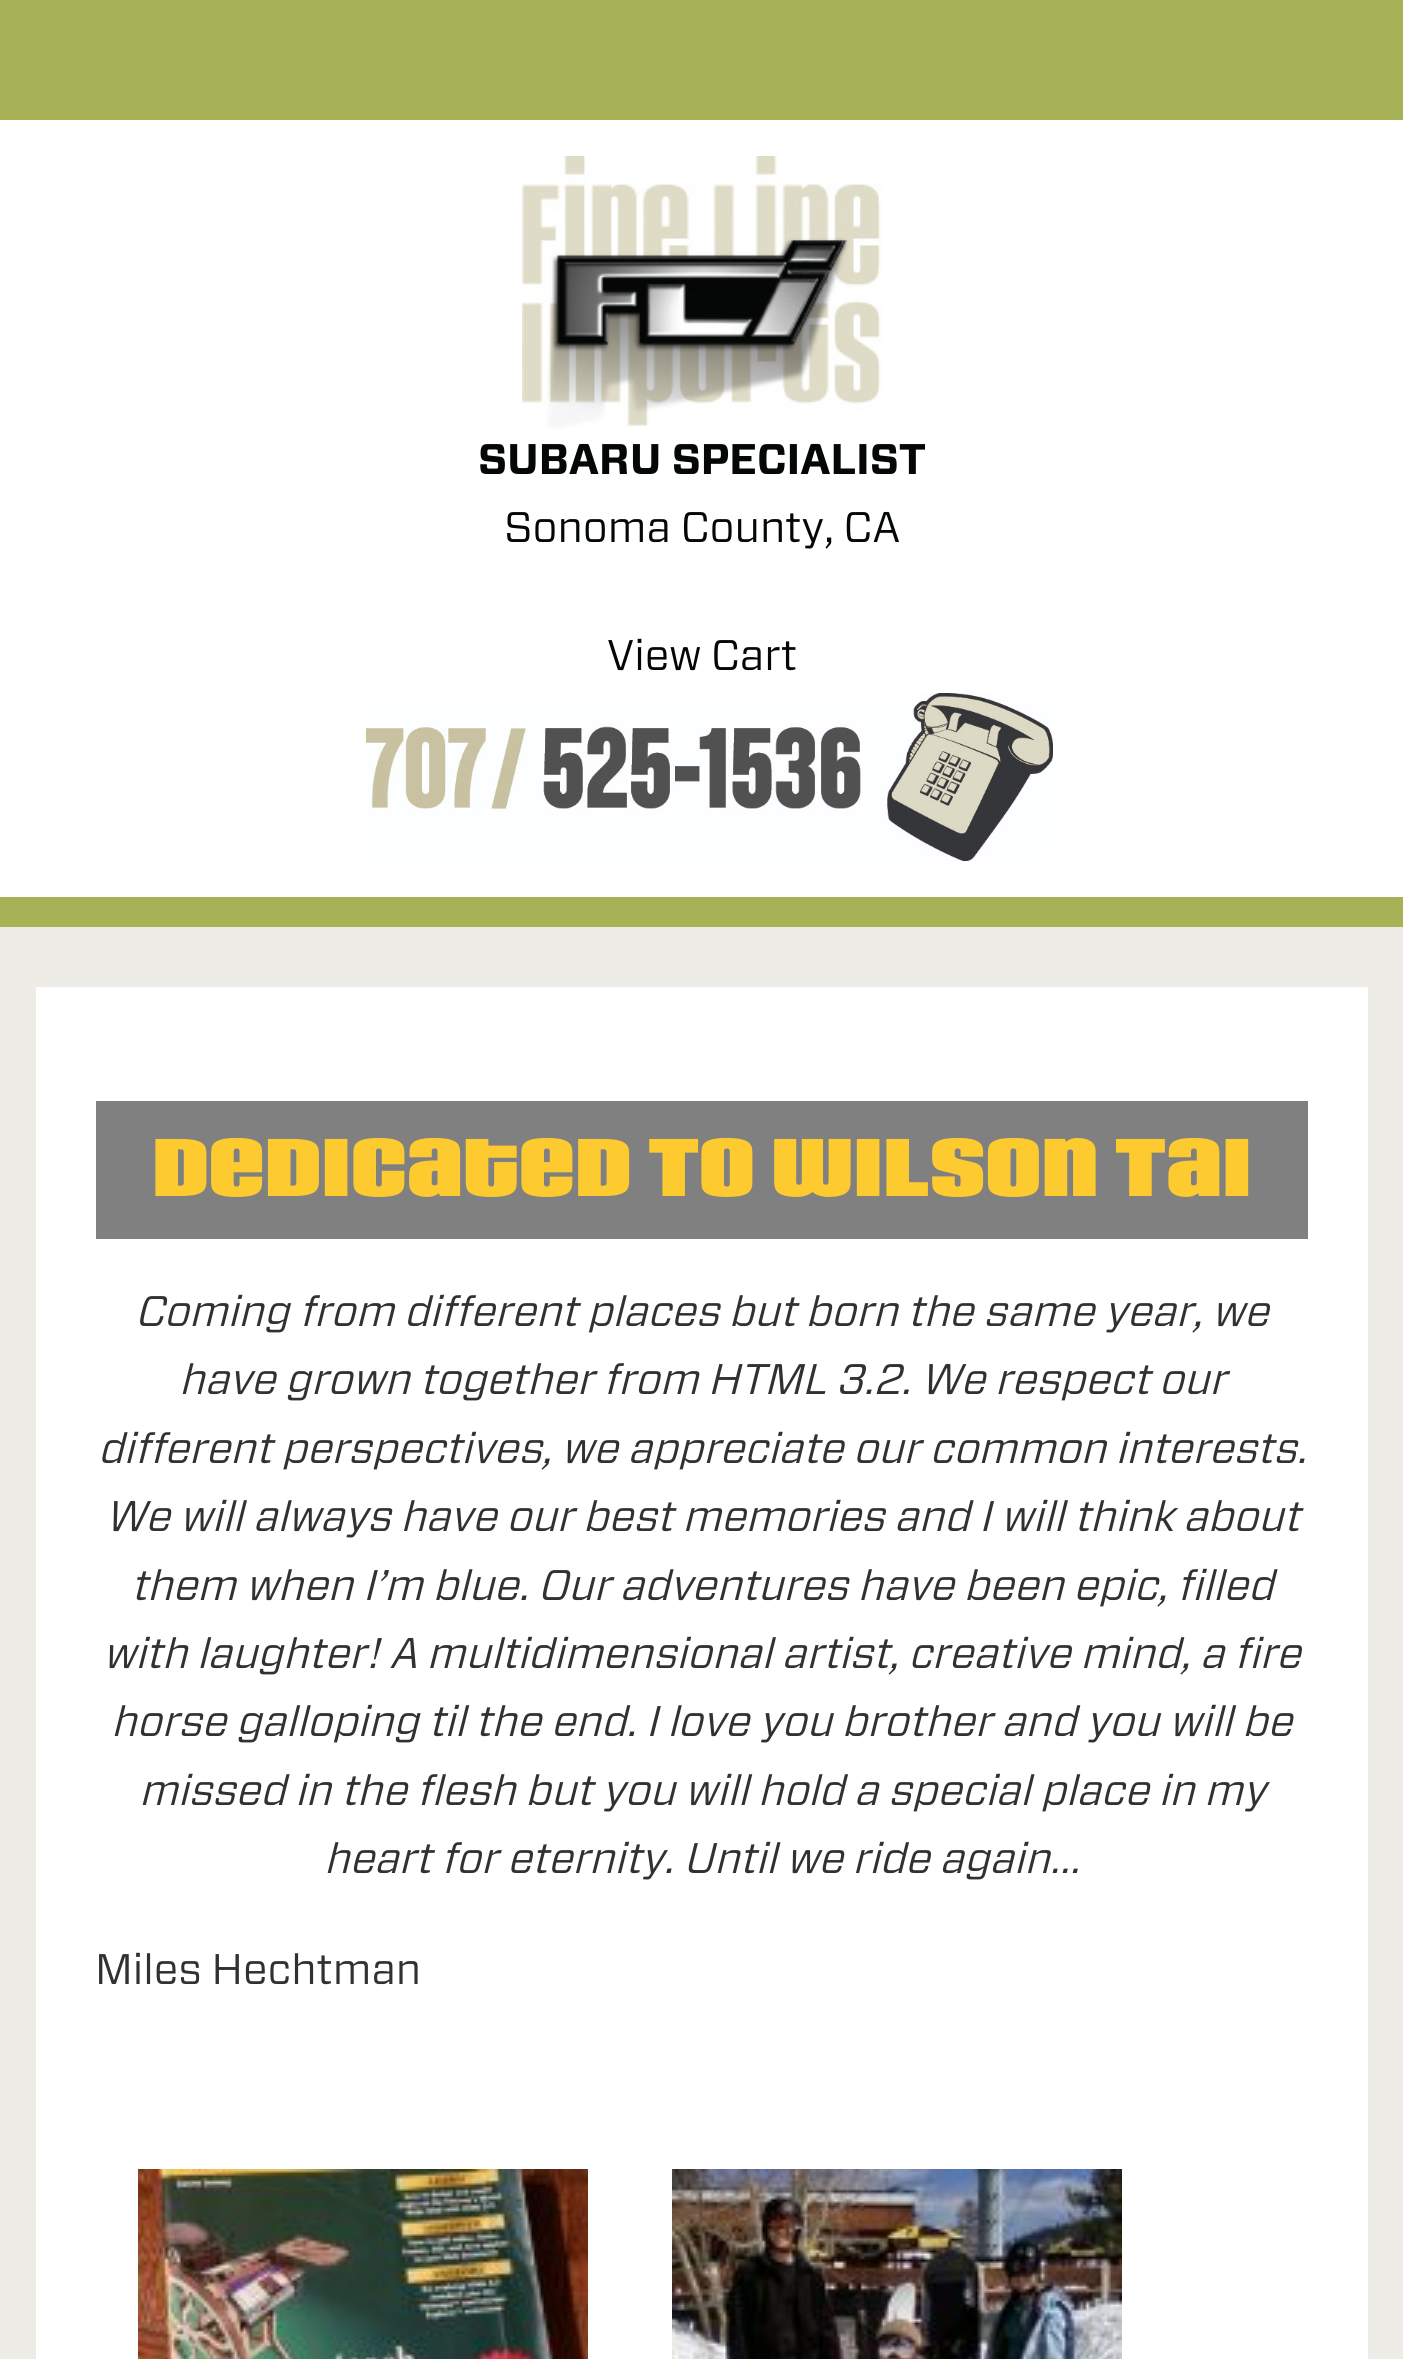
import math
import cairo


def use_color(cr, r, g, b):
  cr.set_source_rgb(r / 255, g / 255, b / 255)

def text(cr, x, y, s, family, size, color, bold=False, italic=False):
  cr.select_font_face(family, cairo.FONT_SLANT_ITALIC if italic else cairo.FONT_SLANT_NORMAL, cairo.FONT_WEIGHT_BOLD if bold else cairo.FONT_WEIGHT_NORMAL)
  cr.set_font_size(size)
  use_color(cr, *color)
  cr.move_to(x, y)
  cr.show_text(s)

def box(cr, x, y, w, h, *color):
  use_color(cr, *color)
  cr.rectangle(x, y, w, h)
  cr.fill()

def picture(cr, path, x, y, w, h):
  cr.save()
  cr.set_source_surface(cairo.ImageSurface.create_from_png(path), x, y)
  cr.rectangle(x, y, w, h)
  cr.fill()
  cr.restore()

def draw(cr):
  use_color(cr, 255, 255, 255)
  cr.paint()
  box(cr, 0, 0, 1403, 120, 166, 178, 85)
  box(cr, 0, 897, 1403, 30, 166, 178, 85)
  picture(cr, "img_01.png", 522, 156, 360, 273)
  picture(cr, "img_02.png", 366, 693, 687, 168)
  box(cr, 0, 927, 1403, 1432, 237, 236, 231)
  box(cr, 36, 987, 1332, 1372, 255, 255, 255)
  box(cr, 96, 1101, 1212, 138, 128, 128, 128)
  picture(cr, "img_03.png", 138, 2169, 450, 190)
  picture(cr, "img_04.png", 672, 2169, 450, 190)
  text(cr, 478, 474, "SUBARU SPECIALIST", "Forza", 42.75, (4, 7, 7), bold=True)
  text(cr, 504, 542, "Sonoma County, CA", "Forza", 42.75, (4, 7, 7))
  text(cr, 607, 670, "View Cart", "Forza", 42.75, (4, 7, 7))
  text(cr, 152, 1196, "Dedicated To Wilson Tai", "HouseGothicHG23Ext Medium", 85.5, (253, 203, 48))
  text(cr, 135, 1326, "Coming from different places but born the same year, we", "Forza", 42.75, (49, 49, 49), italic=True)
  text(cr, 179, 1394, "have grown together from HTML 3.2. We respect our", "Forza", 42.75, (49, 49, 49), italic=True)
  text(cr, 98, 1463, "different perspectives, we appreciate our common interests.", "Forza", 42.75, (49, 49, 49), italic=True)
  text(cr, 105, 1531, "We will always have our best memories and I will think about", "Forza", 42.75, (49, 49, 49), italic=True)
  text(cr, 131, 1600, "them when I’m blue. Our adventures have been epic, filled", "Forza", 42.75, (49, 49, 49), italic=True)
  text(cr, 103, 1668, "with laughter! A multidimensional artist, creative mind, a fire", "Forza", 42.75, (49, 49, 49), italic=True)
  text(cr, 111, 1736, "horse galloping til the end. I love you brother and you will be", "Forza", 42.75, (49, 49, 49), italic=True)
  text(cr, 139, 1805, "missed in the flesh but you will hold a special place in my", "Forza", 42.75, (49, 49, 49), italic=True)
  text(cr, 324, 1873, "heart for eternity. Until we ride again…", "Forza", 42.75, (49, 49, 49), italic=True)
  text(cr, 95, 1984, "Miles Hechtman", "Forza", 42.75, (49, 49, 49))


surface = cairo.ImageSurface(cairo.FORMAT_RGB24, 1403, 2359)
cr = cairo.Context(surface)
options = cairo.FontOptions()
options.set_hint_metrics(cairo.HINT_METRICS_OFF)
options.set_hint_style(cairo.HINT_STYLE_NONE)
cr.set_font_options(options)
cr.set_miter_limit(4)
draw(cr)
surface.write_to_png("out.png")
